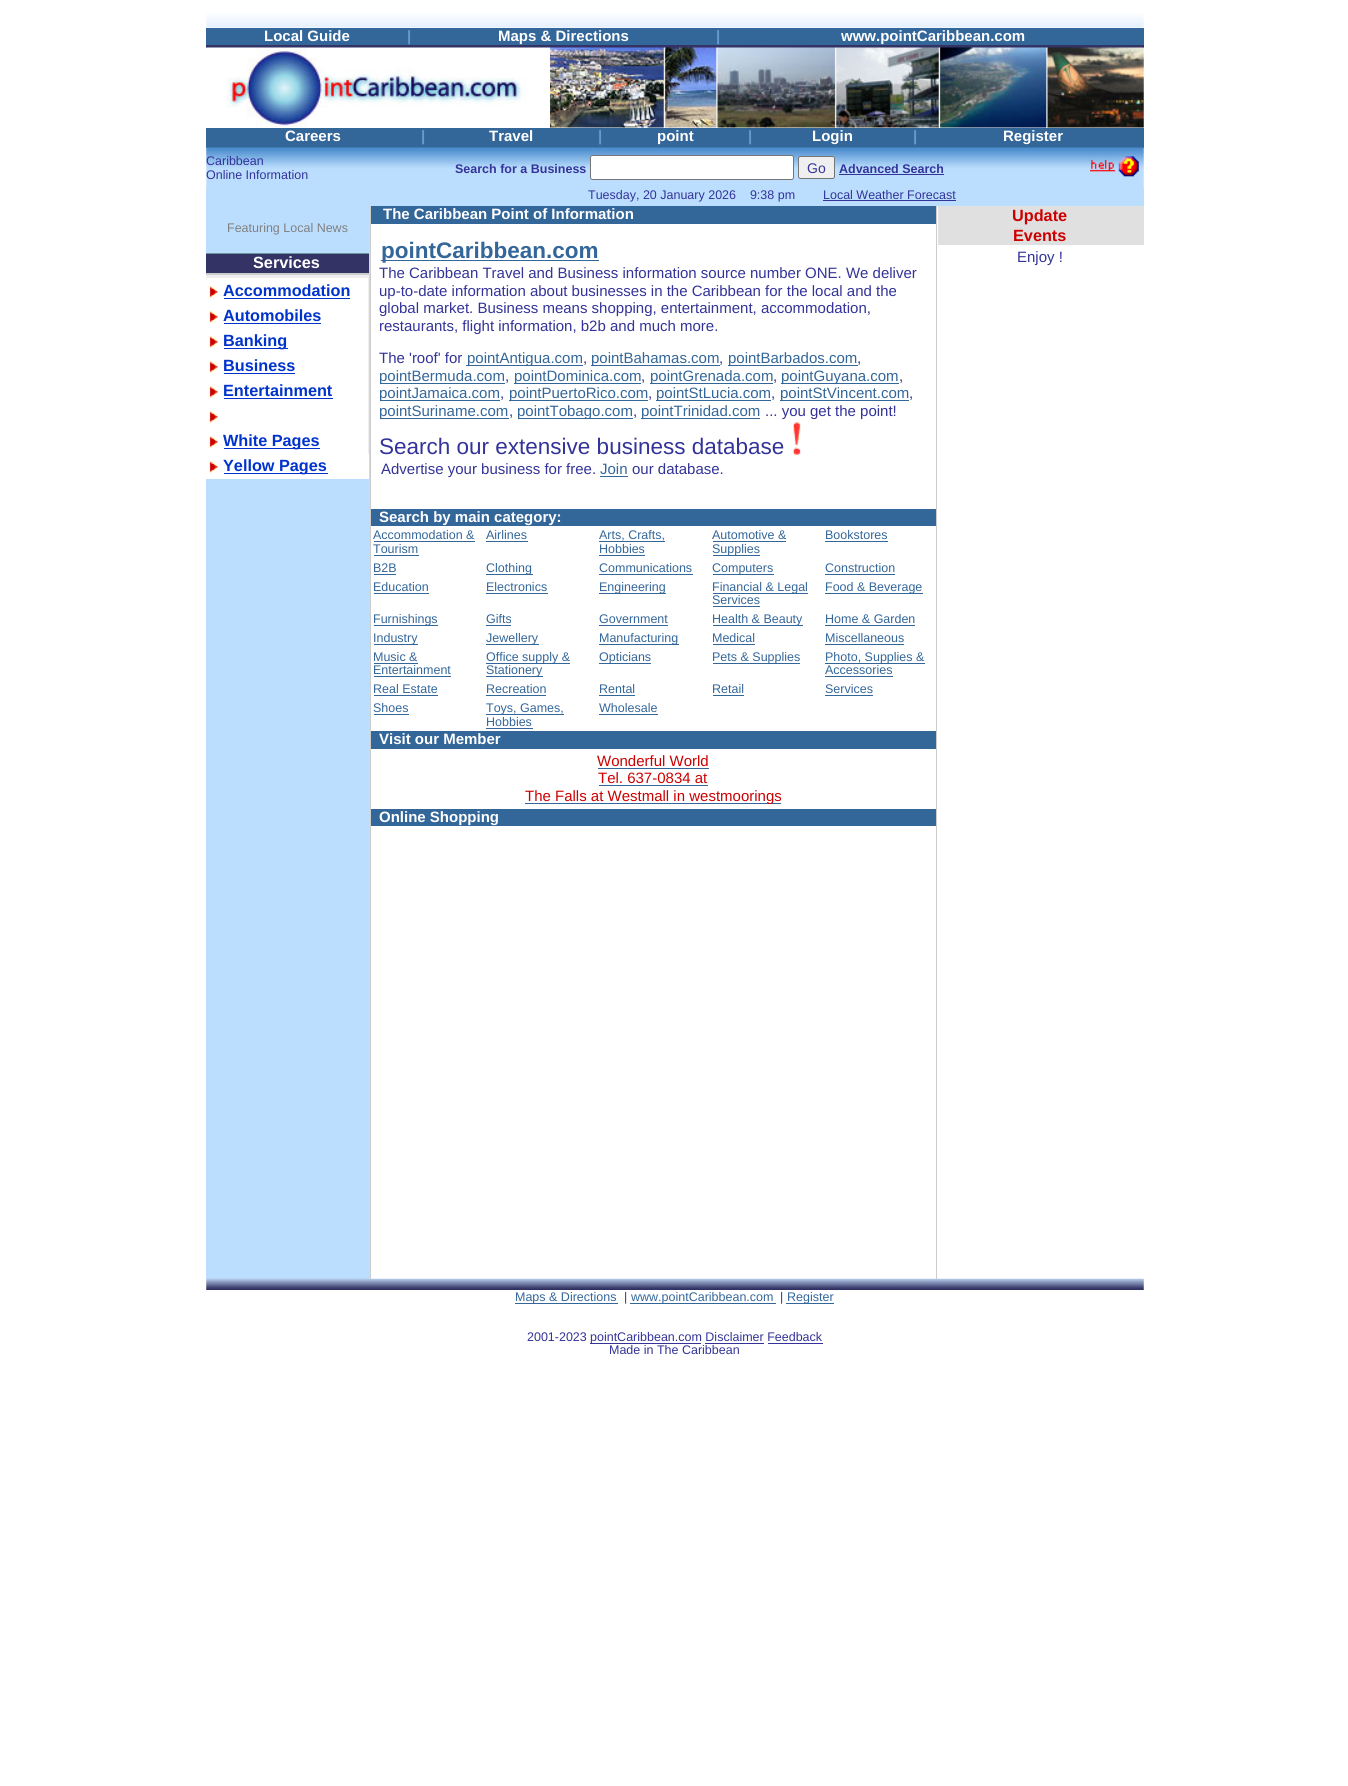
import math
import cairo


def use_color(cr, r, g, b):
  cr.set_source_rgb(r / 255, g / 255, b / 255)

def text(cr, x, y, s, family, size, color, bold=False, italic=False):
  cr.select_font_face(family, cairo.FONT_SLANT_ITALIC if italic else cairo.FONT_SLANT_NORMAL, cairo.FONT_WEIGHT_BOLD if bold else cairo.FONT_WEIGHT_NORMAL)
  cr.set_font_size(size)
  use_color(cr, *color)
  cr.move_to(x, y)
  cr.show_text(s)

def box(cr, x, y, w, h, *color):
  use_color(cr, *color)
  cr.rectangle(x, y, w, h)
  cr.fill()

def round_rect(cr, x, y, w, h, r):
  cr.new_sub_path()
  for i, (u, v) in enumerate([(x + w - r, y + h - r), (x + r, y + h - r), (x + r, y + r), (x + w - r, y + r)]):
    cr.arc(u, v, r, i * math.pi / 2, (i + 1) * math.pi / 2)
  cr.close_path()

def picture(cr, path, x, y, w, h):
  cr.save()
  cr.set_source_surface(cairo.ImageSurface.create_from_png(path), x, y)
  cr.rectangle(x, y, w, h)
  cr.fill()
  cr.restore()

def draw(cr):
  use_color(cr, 255, 255, 255)
  cr.paint()
  picture(cr, "img_01.png", 206, 13, 938, 15)
  box(cr, 206, 28, 938, 17, 51, 102, 153)
  box(cr, 206, 45, 938, 3, 51, 51, 102)
  picture(cr, "img_02.png", 206, 47, 344, 81)
  picture(cr, "img_03.png", 550, 47, 594, 81)
  box(cr, 206, 128, 938, 20, 51, 102, 153)
  picture(cr, "img_04.png", 206, 147, 938, 60)
  use_color(cr, 255, 255, 255)
  round_rect(cr, 590.5, 155.5, 203, 24, 2)
  cr.fill_preserve()
  use_color(cr, 118, 118, 118)
  cr.set_line_width(1)
  cr.stroke()
  use_color(cr, 239, 239, 239)
  round_rect(cr, 798.5, 156.5, 36, 22, 2)
  cr.fill_preserve()
  use_color(cr, 118, 118, 118)
  cr.stroke()
  box(cr, 839, 174, 105, 1, 51, 51, 153)
  picture(cr, "img_05.png", 1090, 156, 49, 21)
  box(cr, 206, 188, 1, 18, 188, 222, 254)
  box(cr, 823, 200, 133, 1, 51, 51, 153)
  box(cr, 1143, 188, 1, 18, 188, 222, 254)
  box(cr, 206, 206, 163, 1073, 188, 222, 254)
  box(cr, 206, 253, 163, 1, 102, 153, 153)
  box(cr, 206, 254, 163, 19, 51, 51, 102)
  box(cr, 206, 273, 163, 2, 204, 204, 204)
  box(cr, 206, 275, 163, 3, 238, 238, 238)
  box(cr, 206, 278, 163, 201, 255, 255, 255)
  picture(cr, "img_06.png", 209, 286, 9, 12)
  box(cr, 224, 298, 126, 1, 0, 51, 204)
  box(cr, 368, 278, 1, 176, 238, 238, 238)
  picture(cr, "img_07.png", 209, 311, 9, 12)
  box(cr, 224, 323, 97, 1, 0, 51, 204)
  picture(cr, "img_07.png", 209, 336, 9, 12)
  box(cr, 224, 348, 64, 1, 0, 51, 204)
  picture(cr, "img_07.png", 209, 361, 9, 12)
  box(cr, 224, 373, 71, 1, 0, 51, 204)
  picture(cr, "img_07.png", 209, 386, 9, 12)
  box(cr, 224, 398, 109, 1, 0, 51, 204)
  picture(cr, "img_07.png", 209, 411, 9, 12)
  picture(cr, "img_07.png", 209, 436, 9, 12)
  box(cr, 224, 448, 96, 1, 0, 51, 204)
  picture(cr, "img_07.png", 209, 461, 9, 12)
  box(cr, 224, 473, 104, 1, 0, 51, 204)
  box(cr, 369, 206, 1, 1073, 205, 221, 221)
  box(cr, 370, 206, 1, 1073, 204, 204, 204)
  box(cr, 371, 206, 565, 18, 51, 102, 153)
  box(cr, 381, 260, 218, 1, 51, 102, 153)
  box(cr, 466, 365, 117, 1, 51, 102, 153)
  box(cr, 591, 365, 129, 1, 51, 102, 153)
  box(cr, 728, 365, 130, 1, 51, 102, 153)
  box(cr, 380, 383, 125, 1, 51, 102, 153)
  box(cr, 514, 383, 127, 1, 51, 102, 153)
  box(cr, 650, 383, 123, 1, 51, 102, 153)
  box(cr, 781, 383, 118, 1, 51, 102, 153)
  box(cr, 380, 400, 120, 1, 51, 102, 153)
  box(cr, 509, 400, 139, 1, 51, 102, 153)
  box(cr, 656, 400, 115, 1, 51, 102, 153)
  box(cr, 780, 400, 129, 1, 51, 102, 153)
  box(cr, 380, 418, 129, 1, 51, 102, 153)
  box(cr, 518, 418, 115, 1, 51, 102, 153)
  box(cr, 641, 418, 119, 1, 51, 102, 153)
  picture(cr, "img_08.png", 793, 422, 8, 33)
  box(cr, 600, 476, 28, 1, 51, 102, 153)
  box(cr, 371, 509, 565, 17, 51, 102, 153)
  box(cr, 374, 541, 101, 1, 51, 102, 153)
  box(cr, 374, 555, 45, 1, 51, 102, 153)
  box(cr, 486, 541, 42, 1, 51, 102, 153)
  box(cr, 599, 541, 66, 1, 51, 102, 153)
  box(cr, 599, 555, 46, 1, 51, 102, 153)
  box(cr, 713, 541, 73, 1, 51, 102, 153)
  box(cr, 713, 555, 47, 1, 51, 102, 153)
  box(cr, 825, 541, 63, 1, 51, 102, 153)
  box(cr, 374, 574, 22, 1, 51, 102, 153)
  box(cr, 486, 574, 47, 1, 51, 102, 153)
  box(cr, 599, 574, 94, 1, 51, 102, 153)
  box(cr, 713, 574, 61, 1, 51, 102, 153)
  box(cr, 825, 574, 70, 1, 51, 102, 153)
  box(cr, 374, 593, 55, 1, 51, 102, 153)
  box(cr, 486, 593, 62, 1, 51, 102, 153)
  box(cr, 599, 593, 67, 1, 51, 102, 153)
  box(cr, 713, 593, 95, 1, 51, 102, 153)
  box(cr, 713, 606, 47, 1, 51, 102, 153)
  box(cr, 825, 593, 98, 1, 51, 102, 153)
  box(cr, 374, 625, 64, 1, 51, 102, 153)
  box(cr, 486, 625, 25, 1, 51, 102, 153)
  box(cr, 599, 625, 69, 1, 51, 102, 153)
  box(cr, 713, 625, 90, 1, 51, 102, 153)
  box(cr, 825, 625, 90, 1, 51, 102, 153)
  box(cr, 374, 644, 44, 1, 51, 102, 153)
  box(cr, 486, 644, 53, 1, 51, 102, 153)
  box(cr, 599, 644, 80, 1, 51, 102, 153)
  box(cr, 713, 644, 42, 1, 51, 102, 153)
  box(cr, 825, 644, 79, 1, 51, 102, 153)
  box(cr, 374, 663, 44, 1, 51, 102, 153)
  box(cr, 374, 676, 77, 1, 51, 102, 153)
  box(cr, 486, 663, 84, 1, 51, 102, 153)
  box(cr, 486, 676, 57, 1, 51, 102, 153)
  box(cr, 599, 663, 52, 1, 51, 102, 153)
  box(cr, 713, 663, 87, 1, 51, 102, 153)
  box(cr, 825, 663, 100, 1, 51, 102, 153)
  box(cr, 825, 676, 68, 1, 51, 102, 153)
  box(cr, 374, 695, 64, 1, 51, 102, 153)
  box(cr, 486, 695, 60, 1, 51, 102, 153)
  box(cr, 599, 695, 36, 1, 51, 102, 153)
  box(cr, 713, 695, 31, 1, 51, 102, 153)
  box(cr, 825, 695, 48, 1, 51, 102, 153)
  box(cr, 374, 714, 35, 1, 51, 102, 153)
  box(cr, 486, 714, 78, 1, 51, 102, 153)
  box(cr, 486, 728, 47, 1, 51, 102, 153)
  box(cr, 599, 714, 59, 1, 51, 102, 153)
  box(cr, 371, 731, 565, 18, 51, 102, 153)
  box(cr, 598, 768, 111, 1, 51, 102, 153)
  box(cr, 599, 785, 109, 1, 51, 102, 153)
  box(cr, 525, 803, 256, 1, 51, 102, 153)
  box(cr, 371, 809, 565, 17, 51, 102, 153)
  box(cr, 936, 206, 1, 1073, 204, 204, 204)
  box(cr, 938, 206, 206, 39, 224, 224, 224)
  picture(cr, "img_09.png", 206, 1278, 938, 12)
  box(cr, 515, 1303, 103, 1, 51, 102, 153)
  box(cr, 630, 1303, 146, 1, 51, 102, 153)
  box(cr, 786, 1303, 48, 1, 51, 102, 153)
  box(cr, 590, 1343, 111, 1, 51, 51, 153)
  box(cr, 705, 1343, 59, 1, 51, 51, 153)
  box(cr, 768, 1343, 55, 1, 51, 51, 153)
  text(cr, 264, 41, "Local Guide", "Liberation Sans", 15, (255, 255, 255), bold=True)
  text(cr, 407, 41, "|", "Liberation Sans", 15, (102, 153, 204), bold=True)
  text(cr, 498, 41, "Maps & Directions", "Liberation Sans", 15, (255, 255, 255), bold=True)
  text(cr, 716, 41, "|", "Liberation Sans", 15, (102, 153, 204), bold=True)
  text(cr, 841, 41, "www.pointCaribbean.com", "Liberation Sans", 15, (255, 255, 255), bold=True)
  text(cr, 285, 141, "Careers", "Liberation Sans", 15, (255, 255, 255), bold=True)
  text(cr, 421, 141, "|", "Liberation Sans", 15, (102, 153, 204), bold=True)
  text(cr, 489, 141, "Travel", "Liberation Sans", 15, (255, 255, 255), bold=True)
  text(cr, 598, 141, "|", "Liberation Sans", 15, (102, 153, 204), bold=True)
  text(cr, 657, 141, "point", "Liberation Sans", 15, (255, 255, 255), bold=True)
  text(cr, 748, 141, "|", "Liberation Sans", 15, (102, 153, 204), bold=True)
  text(cr, 812, 141, "Login", "Liberation Sans", 15, (255, 255, 255), bold=True)
  text(cr, 913, 141, "|", "Liberation Sans", 15, (102, 153, 204), bold=True)
  text(cr, 1003, 141, "Register", "Liberation Sans", 15, (255, 255, 255), bold=True)
  text(cr, 206, 165, "Caribbean", "Liberation Sans", 12.5, (51, 51, 153))
  text(cr, 206, 179, "Online Information", "Liberation Sans", 12.5, (51, 51, 153))
  text(cr, 455, 173, "Search for a Business", "Liberation Sans", 12.5, (51, 51, 153), bold=True)
  text(cr, 807, 173, "Go", "Liberation Sans", 14, (51, 51, 153))
  text(cr, 839, 173, "Advanced Search", "Liberation Sans", 12.5, (51, 51, 153), bold=True)
  text(cr, 588, 199, "Tuesday, 20 January 2026    9:38 pm", "Liberation Sans", 12.5, (51, 51, 153))
  text(cr, 823, 199, "Local Weather Forecast", "Liberation Sans", 12.5, (51, 51, 153))
  text(cr, 227, 232, "Featuring Local News", "Liberation Sans", 12.5, (128, 128, 128))
  text(cr, 253, 268, "Services", "Liberation Sans", 16.25, (255, 255, 255), bold=True)
  text(cr, 223, 296, "Accommodation", "Liberation Sans", 16.25, (0, 51, 204), bold=True)
  text(cr, 223, 321, "Automobiles", "Liberation Sans", 16.25, (0, 51, 204), bold=True)
  text(cr, 223, 346, "Banking", "Liberation Sans", 16.25, (0, 51, 204), bold=True)
  text(cr, 223, 371, "Business", "Liberation Sans", 16.25, (0, 51, 204), bold=True)
  text(cr, 223, 396, "Entertainment", "Liberation Sans", 16.25, (0, 51, 204), bold=True)
  text(cr, 223, 446, "White Pages", "Liberation Sans", 16.25, (0, 51, 204), bold=True)
  text(cr, 223, 471, "Yellow Pages", "Liberation Sans", 16.25, (0, 51, 204), bold=True)
  text(cr, 383, 219, "The Caribbean Point of Information", "Liberation Sans", 15, (255, 255, 255), bold=True)
  text(cr, 381, 258, "pointCaribbean.com", "Liberation Sans", 22.5, (51, 102, 153), bold=True)
  text(cr, 379, 278, "The Caribbean Travel and Business information source number ONE. We deliver", "Liberation Sans", 15, (51, 51, 153))
  text(cr, 379, 296, "up-to-date information about businesses in the Caribbean for the local and the", "Liberation Sans", 15, (51, 51, 153))
  text(cr, 379, 313, "global market. Business means shopping, entertainment, accommodation,", "Liberation Sans", 15, (51, 51, 153))
  text(cr, 379, 331, "restaurants, flight information, b2b and much more.", "Liberation Sans", 15, (51, 51, 153))
  text(cr, 379, 363, "The 'roof' for", "Liberation Sans", 15, (51, 51, 153))
  text(cr, 467, 363, "pointAntigua.com", "Liberation Sans", 15, (51, 102, 153))
  text(cr, 583, 363, ",", "Liberation Sans", 15, (51, 51, 153))
  text(cr, 591, 363, "pointBahamas.com", "Liberation Sans", 15, (51, 102, 153))
  text(cr, 719, 363, ",", "Liberation Sans", 15, (51, 51, 153))
  text(cr, 728, 363, "pointBarbados.com", "Liberation Sans", 15, (51, 102, 153))
  text(cr, 857, 363, ",", "Liberation Sans", 15, (51, 51, 153))
  text(cr, 379, 381, "pointBermuda.com", "Liberation Sans", 15, (51, 102, 153))
  text(cr, 505, 381, ",", "Liberation Sans", 15, (51, 51, 153))
  text(cr, 514, 381, "pointDominica.com", "Liberation Sans", 15, (51, 102, 153))
  text(cr, 641, 381, ",", "Liberation Sans", 15, (51, 51, 153))
  text(cr, 650, 381, "pointGrenada.com", "Liberation Sans", 15, (51, 102, 153))
  text(cr, 773, 381, ",", "Liberation Sans", 15, (51, 51, 153))
  text(cr, 781, 381, "pointGuyana.com", "Liberation Sans", 15, (51, 102, 153))
  text(cr, 899, 381, ",", "Liberation Sans", 15, (51, 51, 153))
  text(cr, 379, 398, "pointJamaica.com", "Liberation Sans", 15, (51, 102, 153))
  text(cr, 500, 398, ",", "Liberation Sans", 15, (51, 51, 153))
  text(cr, 509, 398, "pointPuertoRico.com", "Liberation Sans", 15, (51, 102, 153))
  text(cr, 648, 398, ",", "Liberation Sans", 15, (51, 51, 153))
  text(cr, 656, 398, "pointStLucia.com", "Liberation Sans", 15, (51, 102, 153))
  text(cr, 771, 398, ",", "Liberation Sans", 15, (51, 51, 153))
  text(cr, 780, 398, "pointStVincent.com", "Liberation Sans", 15, (51, 102, 153))
  text(cr, 909, 398, ",", "Liberation Sans", 15, (51, 51, 153))
  text(cr, 379, 416, "pointSuriname.com", "Liberation Sans", 15, (51, 102, 153))
  text(cr, 509, 416, ",", "Liberation Sans", 15, (51, 51, 153))
  text(cr, 517, 416, "pointTobago.com", "Liberation Sans", 15, (51, 102, 153))
  text(cr, 633, 416, ",", "Liberation Sans", 15, (51, 51, 153))
  text(cr, 641, 416, "pointTrinidad.com", "Liberation Sans", 15, (51, 102, 153))
  text(cr, 765, 416, "... you get the point!", "Liberation Sans", 15, (51, 51, 153))
  text(cr, 379, 454, "Search our extensive business database", "Liberation Sans", 22.5, (51, 51, 153))
  text(cr, 381, 474, "Advertise your business for free.", "Liberation Sans", 15, (51, 51, 153))
  text(cr, 600, 474, "Join", "Liberation Sans", 15, (51, 102, 153))
  text(cr, 632, 474, "our database.", "Liberation Sans", 15, (51, 51, 153))
  text(cr, 379, 522, "Search by main category:", "Liberation Sans", 15, (255, 255, 255), bold=True)
  text(cr, 373, 539, "Accommodation &", "Liberation Sans", 12.5, (51, 102, 153))
  text(cr, 373, 553, "Tourism", "Liberation Sans", 12.5, (51, 102, 153))
  text(cr, 486, 539, "Airlines", "Liberation Sans", 12.5, (51, 102, 153))
  text(cr, 599, 539, "Arts, Crafts,", "Liberation Sans", 12.5, (51, 102, 153))
  text(cr, 599, 553, "Hobbies", "Liberation Sans", 12.5, (51, 102, 153))
  text(cr, 712, 539, "Automotive &", "Liberation Sans", 12.5, (51, 102, 153))
  text(cr, 712, 553, "Supplies", "Liberation Sans", 12.5, (51, 102, 153))
  text(cr, 825, 539, "Bookstores", "Liberation Sans", 12.5, (51, 102, 153))
  text(cr, 373, 572, "B2B", "Liberation Sans", 12.5, (51, 102, 153))
  text(cr, 486, 572, "Clothing", "Liberation Sans", 12.5, (51, 102, 153))
  text(cr, 599, 572, "Communications", "Liberation Sans", 12.5, (51, 102, 153))
  text(cr, 712, 572, "Computers", "Liberation Sans", 12.5, (51, 102, 153))
  text(cr, 825, 572, "Construction", "Liberation Sans", 12.5, (51, 102, 153))
  text(cr, 373, 591, "Education", "Liberation Sans", 12.5, (51, 102, 153))
  text(cr, 486, 591, "Electronics", "Liberation Sans", 12.5, (51, 102, 153))
  text(cr, 599, 591, "Engineering", "Liberation Sans", 12.5, (51, 102, 153))
  text(cr, 712, 591, "Financial & Legal", "Liberation Sans", 12.5, (51, 102, 153))
  text(cr, 712, 604, "Services", "Liberation Sans", 12.5, (51, 102, 153))
  text(cr, 825, 591, "Food & Beverage", "Liberation Sans", 12.5, (51, 102, 153))
  text(cr, 373, 623, "Furnishings", "Liberation Sans", 12.5, (51, 102, 153))
  text(cr, 486, 623, "Gifts", "Liberation Sans", 12.5, (51, 102, 153))
  text(cr, 599, 623, "Government", "Liberation Sans", 12.5, (51, 102, 153))
  text(cr, 712, 623, "Health & Beauty", "Liberation Sans", 12.5, (51, 102, 153))
  text(cr, 825, 623, "Home & Garden", "Liberation Sans", 12.5, (51, 102, 153))
  text(cr, 373, 642, "Industry", "Liberation Sans", 12.5, (51, 102, 153))
  text(cr, 486, 642, "Jewellery", "Liberation Sans", 12.5, (51, 102, 153))
  text(cr, 599, 642, "Manufacturing", "Liberation Sans", 12.5, (51, 102, 153))
  text(cr, 712, 642, "Medical", "Liberation Sans", 12.5, (51, 102, 153))
  text(cr, 825, 642, "Miscellaneous", "Liberation Sans", 12.5, (51, 102, 153))
  text(cr, 373, 661, "Music &", "Liberation Sans", 12.5, (51, 102, 153))
  text(cr, 373, 674, "Entertainment", "Liberation Sans", 12.5, (51, 102, 153))
  text(cr, 486, 661, "Office supply &", "Liberation Sans", 12.5, (51, 102, 153))
  text(cr, 486, 674, "Stationery", "Liberation Sans", 12.5, (51, 102, 153))
  text(cr, 599, 661, "Opticians", "Liberation Sans", 12.5, (51, 102, 153))
  text(cr, 712, 661, "Pets & Supplies", "Liberation Sans", 12.5, (51, 102, 153))
  text(cr, 825, 661, "Photo, Supplies &", "Liberation Sans", 12.5, (51, 102, 153))
  text(cr, 825, 674, "Accessories", "Liberation Sans", 12.5, (51, 102, 153))
  text(cr, 373, 693, "Real Estate", "Liberation Sans", 12.5, (51, 102, 153))
  text(cr, 486, 693, "Recreation", "Liberation Sans", 12.5, (51, 102, 153))
  text(cr, 599, 693, "Rental", "Liberation Sans", 12.5, (51, 102, 153))
  text(cr, 712, 693, "Retail", "Liberation Sans", 12.5, (51, 102, 153))
  text(cr, 825, 693, "Services", "Liberation Sans", 12.5, (51, 102, 153))
  text(cr, 373, 712, "Shoes", "Liberation Sans", 12.5, (51, 102, 153))
  text(cr, 486, 712, "Toys, Games,", "Liberation Sans", 12.5, (51, 102, 153))
  text(cr, 486, 726, "Hobbies", "Liberation Sans", 12.5, (51, 102, 153))
  text(cr, 599, 712, "Wholesale", "Liberation Sans", 12.5, (51, 102, 153))
  text(cr, 379, 744, "Visit our Member", "Liberation Sans", 15, (255, 255, 255), bold=True)
  text(cr, 597, 766, "Wonderful World", "Liberation Sans", 15, (204, 0, 0))
  text(cr, 598, 783, "Tel. 637-0834 at", "Liberation Sans", 15, (204, 0, 0))
  text(cr, 525, 801, "The Falls at Westmall in westmoorings", "Liberation Sans", 15, (204, 0, 0))
  text(cr, 379, 822, "Online Shopping", "Liberation Sans", 15, (255, 255, 255), bold=True)
  text(cr, 1012, 221, "Update", "Liberation Sans", 16.25, (204, 0, 0), bold=True)
  text(cr, 1013, 241, "Events", "Liberation Sans", 16.25, (204, 0, 0), bold=True)
  text(cr, 1017, 262, "Enjoy !", "Liberation Sans", 15, (51, 51, 153))
  text(cr, 515, 1301, "Maps & Directions", "Liberation Sans", 12.5, (51, 102, 153))
  text(cr, 624, 1301, "|", "Liberation Sans", 12.5, (51, 51, 153))
  text(cr, 631, 1301, "www.pointCaribbean.com", "Liberation Sans", 12.5, (51, 102, 153))
  text(cr, 780, 1301, "|", "Liberation Sans", 12.5, (51, 51, 153))
  text(cr, 787, 1301, "Register", "Liberation Sans", 12.5, (51, 102, 153))
  text(cr, 527, 1341, "2001-2023", "Liberation Sans", 12.5, (51, 51, 153))
  text(cr, 590, 1341, "pointCaribbean.com Disclaimer Feedback", "Liberation Sans", 12.5, (51, 51, 153))
  text(cr, 609, 1354, "Made in The Caribbean", "Liberation Sans", 12.5, (51, 51, 153))


surface = cairo.ImageSurface(cairo.FORMAT_RGB24, 1348, 1786)
cr = cairo.Context(surface)
options = cairo.FontOptions()
options.set_hint_metrics(cairo.HINT_METRICS_OFF)
options.set_hint_style(cairo.HINT_STYLE_NONE)
cr.set_font_options(options)
cr.set_miter_limit(4)
draw(cr)
surface.write_to_png("out.png")
